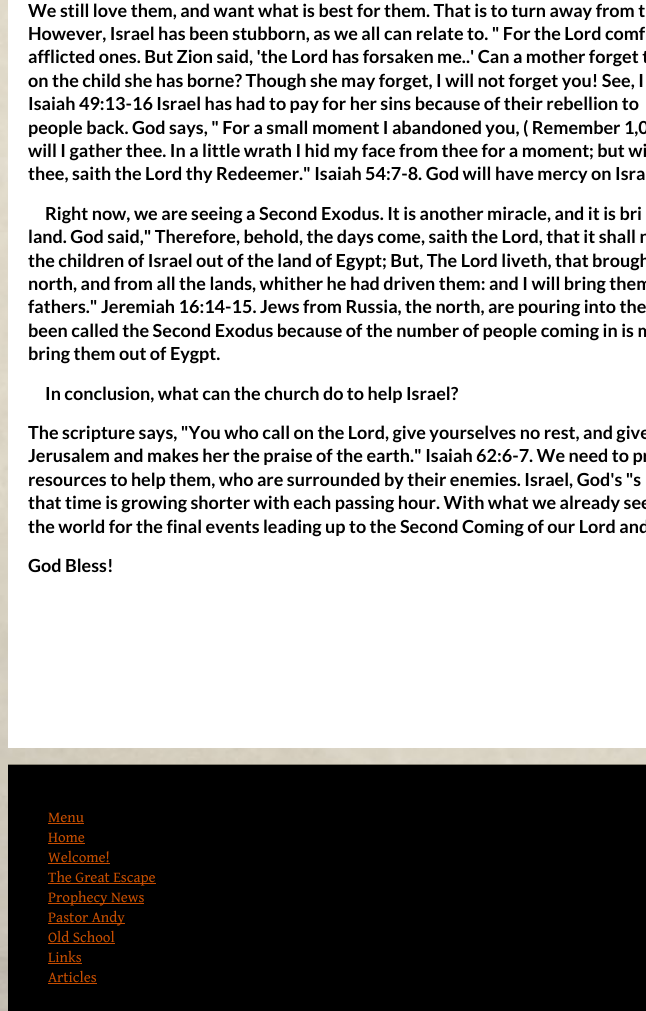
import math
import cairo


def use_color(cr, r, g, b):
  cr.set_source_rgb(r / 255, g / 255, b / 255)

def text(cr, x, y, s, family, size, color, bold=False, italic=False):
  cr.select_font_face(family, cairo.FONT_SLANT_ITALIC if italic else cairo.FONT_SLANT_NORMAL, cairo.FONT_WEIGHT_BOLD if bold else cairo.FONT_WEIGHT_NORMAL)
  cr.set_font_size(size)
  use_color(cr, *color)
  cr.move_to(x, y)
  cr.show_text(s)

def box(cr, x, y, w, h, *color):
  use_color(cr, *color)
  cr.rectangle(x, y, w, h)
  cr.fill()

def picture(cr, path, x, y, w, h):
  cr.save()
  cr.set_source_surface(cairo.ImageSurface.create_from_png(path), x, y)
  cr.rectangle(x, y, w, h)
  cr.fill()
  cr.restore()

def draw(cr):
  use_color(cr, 255, 255, 255)
  cr.paint()
  picture(cr, "img_01.png", 0, 0, 646, 1011)
  box(cr, 8, 0, 638, 748, 255, 255, 255)
  box(cr, 8, 765, 638, 246, 0, 0, 0)
  box(cr, 8, 764, 638, 1, 134, 130, 116)
  box(cr, 48, 823, 36, 1, 200, 78, 0)
  box(cr, 48, 843, 37, 1, 200, 78, 0)
  box(cr, 48, 863, 62, 1, 200, 78, 0)
  box(cr, 48, 883, 108, 1, 200, 78, 0)
  box(cr, 48, 903, 96, 1, 200, 78, 0)
  box(cr, 48, 923, 77, 1, 200, 78, 0)
  box(cr, 48, 943, 67, 1, 200, 78, 0)
  box(cr, 48, 963, 34, 1, 200, 78, 0)
  box(cr, 48, 983, 49, 1, 200, 78, 0)
  text(cr, 28, 17, "We still love them, and want what is best for them. That is to turn away from t", "Lato", 18, (0, 0, 0), bold=True)
  text(cr, 28, 40, "However, Israel has been stubborn, as we all can relate to. \" For the Lord comf", "Lato", 18, (0, 0, 0), bold=True)
  text(cr, 28, 63, "afflicted ones. But Zion said, 'the Lord has forsaken me..' Can a mother forget t", "Lato", 18, (0, 0, 0), bold=True)
  text(cr, 28, 87, "on the child she has borne? Though she may forget, I will not forget you! See, I", "Lato", 18, (0, 0, 0), bold=True)
  text(cr, 28, 110, "Isaiah 49:13-16 Israel has had to pay for her sins because of their rebellion to", "Lato", 18, (0, 0, 0), bold=True)
  text(cr, 28, 134, "people back. God says, \" For a small moment I abandoned you, ( Remember 1,0", "Lato", 18, (0, 0, 0), bold=True)
  text(cr, 28, 157, "will I gather thee. In a little wrath I hid my face from thee for a moment; but wi", "Lato", 18, (0, 0, 0), bold=True)
  text(cr, 28, 180, "thee, saith the Lord thy Redeemer.\" Isaiah 54:7-8. God will have mercy on Isra", "Lato", 18, (0, 0, 0), bold=True)
  text(cr, 45, 220, "Right now, we are seeing a Second Exodus. It is another miracle, and it is bri", "Lato", 18, (0, 0, 0), bold=True)
  text(cr, 28, 243, "land. God said,\" Therefore, behold, the days come, saith the Lord, that it shall n", "Lato", 18, (0, 0, 0), bold=True)
  text(cr, 28, 267, "the children of Israel out of the land of Egypt; But, The Lord liveth, that brough", "Lato", 18, (0, 0, 0), bold=True)
  text(cr, 28, 290, "north, and from all the lands, whither he had driven them: and I will bring them", "Lato", 18, (0, 0, 0), bold=True)
  text(cr, 28, 313, "fathers.\" Jeremiah 16:14-15. Jews from Russia, the north, are pouring into the", "Lato", 18, (0, 0, 0), bold=True)
  text(cr, 28, 337, "been called the Second Exodus because of the number of people coming in is m", "Lato", 18, (0, 0, 0), bold=True)
  text(cr, 28, 360, "bring them out of Eygpt.", "Lato", 18, (0, 0, 0), bold=True)
  text(cr, 45, 400, "In conclusion, what can the church do to help Israel?", "Lato", 18, (0, 0, 0), bold=True)
  text(cr, 28, 439, "The scripture says, \"You who call on the Lord, give yourselves no rest, and give", "Lato", 18, (0, 0, 0), bold=True)
  text(cr, 28, 462, "Jerusalem and makes her the praise of the earth.\" Isaiah 62:6-7. We need to pr", "Lato", 18, (0, 0, 0), bold=True)
  text(cr, 28, 486, "resources to help them, who are surrounded by their enemies. Israel, God's \"s", "Lato", 18, (0, 0, 0), bold=True)
  text(cr, 28, 509, "that time is growing shorter with each passing hour. With what we already see", "Lato", 18, (0, 0, 0), bold=True)
  text(cr, 28, 533, "the world for the final events leading up to the Second Coming of our Lord and", "Lato", 18, (0, 0, 0), bold=True)
  text(cr, 28, 572, "God Bless!", "Lato", 18, (0, 0, 0), bold=True)
  text(cr, 48, 822, "Menu", "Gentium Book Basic", 15, (200, 78, 0))
  text(cr, 48, 842, "Home", "Gentium Book Basic", 15, (200, 78, 0))
  text(cr, 48, 862, "Welcome!", "Gentium Book Basic", 15, (200, 78, 0))
  text(cr, 48, 882, "The Great Escape", "Gentium Book Basic", 15, (200, 78, 0))
  text(cr, 48, 902, "Prophecy News", "Gentium Book Basic", 15, (200, 78, 0))
  text(cr, 48, 922, "Pastor Andy", "Gentium Book Basic", 15, (200, 78, 0))
  text(cr, 48, 942, "Old School", "Gentium Book Basic", 15, (200, 78, 0))
  text(cr, 48, 962, "Links", "Gentium Book Basic", 15, (200, 78, 0))
  text(cr, 48, 982, "Articles", "Gentium Book Basic", 15, (200, 78, 0))


surface = cairo.ImageSurface(cairo.FORMAT_RGB24, 646, 1011)
cr = cairo.Context(surface)
options = cairo.FontOptions()
options.set_hint_metrics(cairo.HINT_METRICS_OFF)
options.set_hint_style(cairo.HINT_STYLE_NONE)
cr.set_font_options(options)
cr.set_miter_limit(4)
draw(cr)
surface.write_to_png("out.png")
